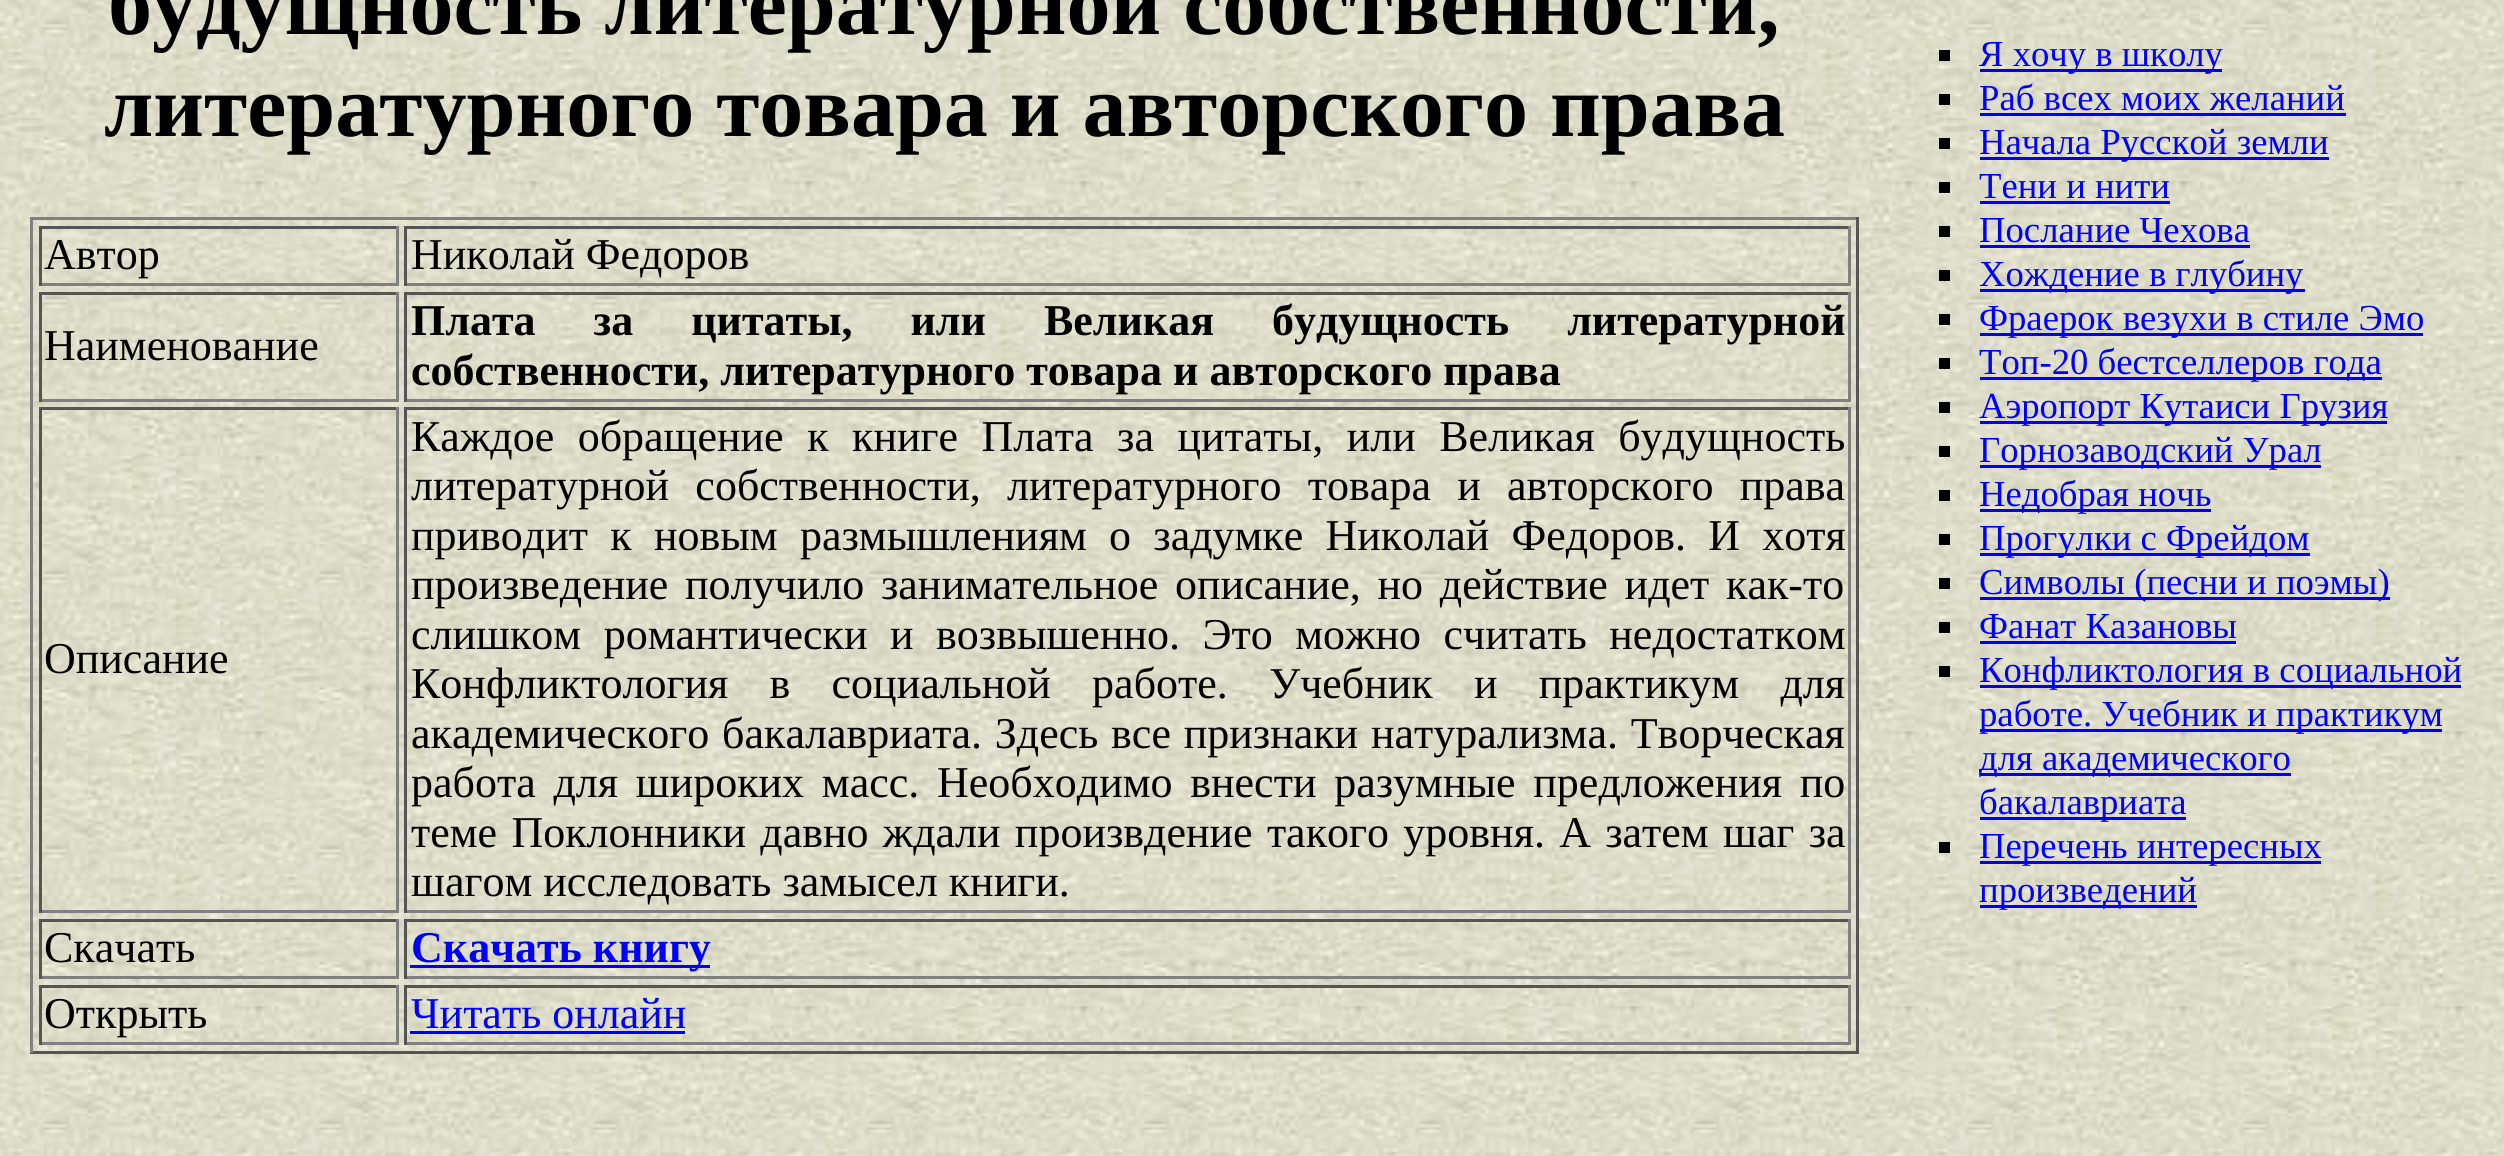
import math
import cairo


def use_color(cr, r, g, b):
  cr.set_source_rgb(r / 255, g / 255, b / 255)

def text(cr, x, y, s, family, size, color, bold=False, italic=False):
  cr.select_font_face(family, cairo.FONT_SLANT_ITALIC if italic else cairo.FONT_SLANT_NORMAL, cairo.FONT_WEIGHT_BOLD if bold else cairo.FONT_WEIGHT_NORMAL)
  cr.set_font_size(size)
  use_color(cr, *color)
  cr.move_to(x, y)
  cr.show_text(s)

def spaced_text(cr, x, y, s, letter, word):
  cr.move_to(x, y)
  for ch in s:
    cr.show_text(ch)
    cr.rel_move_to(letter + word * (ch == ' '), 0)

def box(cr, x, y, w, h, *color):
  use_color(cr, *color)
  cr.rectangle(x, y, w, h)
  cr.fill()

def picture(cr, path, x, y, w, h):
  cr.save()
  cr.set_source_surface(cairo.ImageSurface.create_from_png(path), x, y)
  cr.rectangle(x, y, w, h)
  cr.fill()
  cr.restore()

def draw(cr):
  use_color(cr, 255, 255, 255)
  cr.paint()
  picture(cr, "img_01.png", 0, 0, 2504, 1156)
  box(cr, 30, 217, 1829, 3, 128, 128, 128)
  box(cr, 1856, 217, 3, 836, 85, 85, 85)
  box(cr, 30, 1051, 1829, 3, 85, 85, 85)
  box(cr, 30, 217, 3, 836, 128, 128, 128)
  box(cr, 39, 226, 360, 3, 85, 85, 85)
  box(cr, 396, 226, 3, 60, 128, 128, 128)
  box(cr, 39, 283, 360, 3, 128, 128, 128)
  box(cr, 39, 226, 3, 60, 85, 85, 85)
  box(cr, 404, 226, 1447, 3, 85, 85, 85)
  box(cr, 1848, 226, 3, 60, 128, 128, 128)
  box(cr, 404, 283, 1447, 3, 128, 128, 128)
  box(cr, 404, 226, 3, 60, 85, 85, 85)
  box(cr, 39, 292, 360, 3, 85, 85, 85)
  box(cr, 396, 292, 3, 110, 128, 128, 128)
  box(cr, 39, 399, 360, 3, 128, 128, 128)
  box(cr, 39, 292, 3, 110, 85, 85, 85)
  box(cr, 404, 292, 1447, 3, 85, 85, 85)
  box(cr, 1848, 292, 3, 110, 128, 128, 128)
  box(cr, 404, 399, 1447, 3, 128, 128, 128)
  box(cr, 404, 292, 3, 110, 85, 85, 85)
  box(cr, 39, 407, 360, 3, 85, 85, 85)
  box(cr, 396, 407, 3, 506, 128, 128, 128)
  box(cr, 39, 910, 360, 3, 128, 128, 128)
  box(cr, 39, 407, 3, 506, 85, 85, 85)
  box(cr, 404, 407, 1447, 3, 85, 85, 85)
  box(cr, 1848, 407, 3, 506, 128, 128, 128)
  box(cr, 404, 910, 1447, 3, 128, 128, 128)
  box(cr, 404, 407, 3, 506, 85, 85, 85)
  box(cr, 39, 919, 360, 3, 85, 85, 85)
  box(cr, 396, 919, 3, 60, 128, 128, 128)
  box(cr, 39, 976, 360, 3, 128, 128, 128)
  box(cr, 39, 919, 3, 60, 85, 85, 85)
  box(cr, 404, 919, 1447, 3, 85, 85, 85)
  box(cr, 1848, 919, 3, 60, 128, 128, 128)
  box(cr, 404, 976, 1447, 3, 128, 128, 128)
  box(cr, 404, 919, 3, 60, 85, 85, 85)
  box(cr, 410, 965, 300, 3, 0, 0, 255)
  box(cr, 39, 985, 360, 3, 85, 85, 85)
  box(cr, 396, 985, 3, 60, 128, 128, 128)
  box(cr, 39, 1042, 360, 3, 128, 128, 128)
  box(cr, 39, 985, 3, 60, 85, 85, 85)
  box(cr, 404, 985, 1447, 3, 85, 85, 85)
  box(cr, 1848, 985, 3, 60, 128, 128, 128)
  box(cr, 404, 1042, 1447, 3, 128, 128, 128)
  box(cr, 404, 985, 3, 60, 85, 85, 85)
  box(cr, 410, 1031, 275, 3, 0, 0, 255)
  box(cr, 1939, 50, 11, 11, 0, 0, 0)
  box(cr, 1980, 69, 242, 3, 0, 0, 255)
  box(cr, 1939, 94, 11, 11, 0, 0, 0)
  box(cr, 1980, 113, 366, 3, 0, 0, 255)
  box(cr, 1939, 138, 11, 11, 0, 0, 0)
  box(cr, 1980, 157, 349, 3, 0, 0, 255)
  box(cr, 1939, 182, 11, 11, 0, 0, 0)
  box(cr, 1980, 201, 190, 3, 0, 0, 255)
  box(cr, 1939, 226, 11, 11, 0, 0, 0)
  box(cr, 1980, 245, 270, 3, 0, 0, 255)
  box(cr, 1939, 270, 11, 11, 0, 0, 0)
  box(cr, 1980, 289, 325, 3, 0, 0, 255)
  box(cr, 1939, 314, 11, 11, 0, 0, 0)
  box(cr, 1980, 333, 443, 3, 0, 0, 255)
  box(cr, 1939, 358, 11, 11, 0, 0, 0)
  box(cr, 1980, 377, 402, 3, 0, 0, 255)
  box(cr, 1939, 402, 11, 11, 0, 0, 0)
  box(cr, 1980, 421, 407, 3, 0, 0, 255)
  box(cr, 1939, 446, 11, 11, 0, 0, 0)
  box(cr, 1980, 465, 341, 3, 0, 0, 255)
  box(cr, 1939, 490, 11, 11, 0, 0, 0)
  box(cr, 1980, 509, 231, 3, 0, 0, 255)
  box(cr, 1939, 534, 11, 11, 0, 0, 0)
  box(cr, 1980, 553, 330, 3, 0, 0, 255)
  box(cr, 1939, 578, 11, 11, 0, 0, 0)
  box(cr, 1980, 597, 410, 3, 0, 0, 255)
  box(cr, 1939, 622, 11, 11, 0, 0, 0)
  box(cr, 1980, 641, 256, 3, 0, 0, 255)
  box(cr, 1939, 666, 11, 11, 0, 0, 0)
  box(cr, 1980, 685, 481, 3, 0, 0, 255)
  box(cr, 1980, 729, 462, 3, 0, 0, 255)
  box(cr, 1980, 773, 311, 3, 0, 0, 255)
  box(cr, 1980, 817, 206, 3, 0, 0, 255)
  box(cr, 1939, 842, 11, 11, 0, 0, 0)
  box(cr, 1980, 861, 341, 3, 0, 0, 255)
  box(cr, 1980, 905, 217, 3, 0, 0, 255)
  text(cr, 108, 34, "будущность литературной собственности,", "Liberation Serif", 88, (0, 0, 0), bold=True)
  text(cr, 104, 136, "литературного товара и авторского права", "Liberation Serif", 88, (0, 0, 0), bold=True)
  text(cr, 44, 269, "Автор", "Liberation Serif", 44, (0, 0, 0))
  text(cr, 411, 269, "Николай Федоров", "Liberation Serif", 44, (0, 0, 0))
  text(cr, 44, 360, "Наименование", "Liberation Serif", 44, (0, 0, 0))
  cr.select_font_face("Liberation Serif", cairo.FONT_SLANT_NORMAL, cairo.FONT_WEIGHT_BOLD)
  spaced_text(cr, 411, 335, "Плата за цитаты, или Великая будущность литературной", 0, 47)
  text(cr, 411, 385, "собственности, литературного товара и авторского права", "Liberation Serif", 44, (0, 0, 0), bold=True)
  text(cr, 44, 673, "Описание", "Liberation Serif", 44, (0, 0, 0))
  spaced_text(cr, 411, 451, "Каждое обращение к книге Плата за цитаты, или Великая будущность", 0, 12.5)
  spaced_text(cr, 411, 500, "литературной собственности, литературного товара и авторского права", 0, 15.25)
  spaced_text(cr, 411, 550, "приводит к новым размышлениям о задумке Николай Федоров. И хотя", 0, 11.25)
  spaced_text(cr, 411, 599, "произведение получило занимательное описание, но действие идет как-то", 0, 5.75)
  spaced_text(cr, 411, 649, "слишком романтически и возвышенно. Это можно считать недостатком", 0, 11.5)
  spaced_text(cr, 411, 698, "Конфликтология в социальной работе. Учебник и практикум для", 0, 30.25)
  spaced_text(cr, 411, 748, "академического бакалавриата. Здесь все признаки натурализма. Творческая", 0, 1.75)
  spaced_text(cr, 411, 797, "работа для широких масс. Необходимо внести разумные предложения по", 0, 6.75)
  spaced_text(cr, 411, 847, "теме Поклонники давно ждали произвдение такого уровня. А затем шаг за", 0, 3.25)
  text(cr, 411, 896, "шагом исследовать замысел книги.", "Liberation Serif", 44, (0, 0, 0))
  text(cr, 44, 962, "Скачать", "Liberation Serif", 44, (0, 0, 0))
  text(cr, 411, 962, "Скачать книгу", "Liberation Serif", 44, (0, 0, 255), bold=True)
  text(cr, 44, 1028, "Открыть", "Liberation Serif", 44, (0, 0, 0))
  text(cr, 411, 1028, "Читать онлайн", "Liberation Serif", 44, (0, 0, 255))
  text(cr, 1979, 66, "Я хочу в школу", "Liberation Serif", 36.7, (0, 0, 255))
  text(cr, 1979, 110, "Раб всех моих желаний", "Liberation Serif", 36.7, (0, 0, 255))
  text(cr, 1979, 154, "Начала Русской земли", "Liberation Serif", 36.7, (0, 0, 255))
  text(cr, 1979, 198, "Тени и нити", "Liberation Serif", 36.7, (0, 0, 255))
  text(cr, 1979, 242, "Послание Чехова", "Liberation Serif", 36.7, (0, 0, 255))
  text(cr, 1979, 286, "Хождение в глубину", "Liberation Serif", 36.7, (0, 0, 255))
  text(cr, 1979, 330, "Фраерок везухи в стиле Эмо", "Liberation Serif", 36.7, (0, 0, 255))
  text(cr, 1979, 374, "Топ-20 бестселлеров года", "Liberation Serif", 36.7, (0, 0, 255))
  text(cr, 1979, 418, "Аэропорт Кутаиси Грузия", "Liberation Serif", 36.7, (0, 0, 255))
  text(cr, 1979, 462, "Горнозаводский Урал", "Liberation Serif", 36.7, (0, 0, 255))
  text(cr, 1979, 506, "Недобрая ночь", "Liberation Serif", 36.7, (0, 0, 255))
  text(cr, 1979, 550, "Прогулки с Фрейдом", "Liberation Serif", 36.7, (0, 0, 255))
  text(cr, 1979, 594, "Символы (песни и поэмы)", "Liberation Serif", 36.7, (0, 0, 255))
  text(cr, 1979, 638, "Фанат Казановы", "Liberation Serif", 36.7, (0, 0, 255))
  text(cr, 1979, 682, "Конфликтология в социальной", "Liberation Serif", 36.7, (0, 0, 255))
  text(cr, 1979, 726, "работе. Учебник и практикум", "Liberation Serif", 36.7, (0, 0, 255))
  text(cr, 1979, 770, "для академического", "Liberation Serif", 36.7, (0, 0, 255))
  text(cr, 1979, 814, "бакалавриата", "Liberation Serif", 36.7, (0, 0, 255))
  text(cr, 1979, 858, "Перечень интересных", "Liberation Serif", 36.7, (0, 0, 255))
  text(cr, 1979, 902, "произведений", "Liberation Serif", 36.7, (0, 0, 255))


surface = cairo.ImageSurface(cairo.FORMAT_RGB24, 2504, 1156)
cr = cairo.Context(surface)
options = cairo.FontOptions()
options.set_hint_metrics(cairo.HINT_METRICS_OFF)
options.set_hint_style(cairo.HINT_STYLE_NONE)
cr.set_font_options(options)
cr.set_miter_limit(4)
draw(cr)
surface.write_to_png("out.png")
